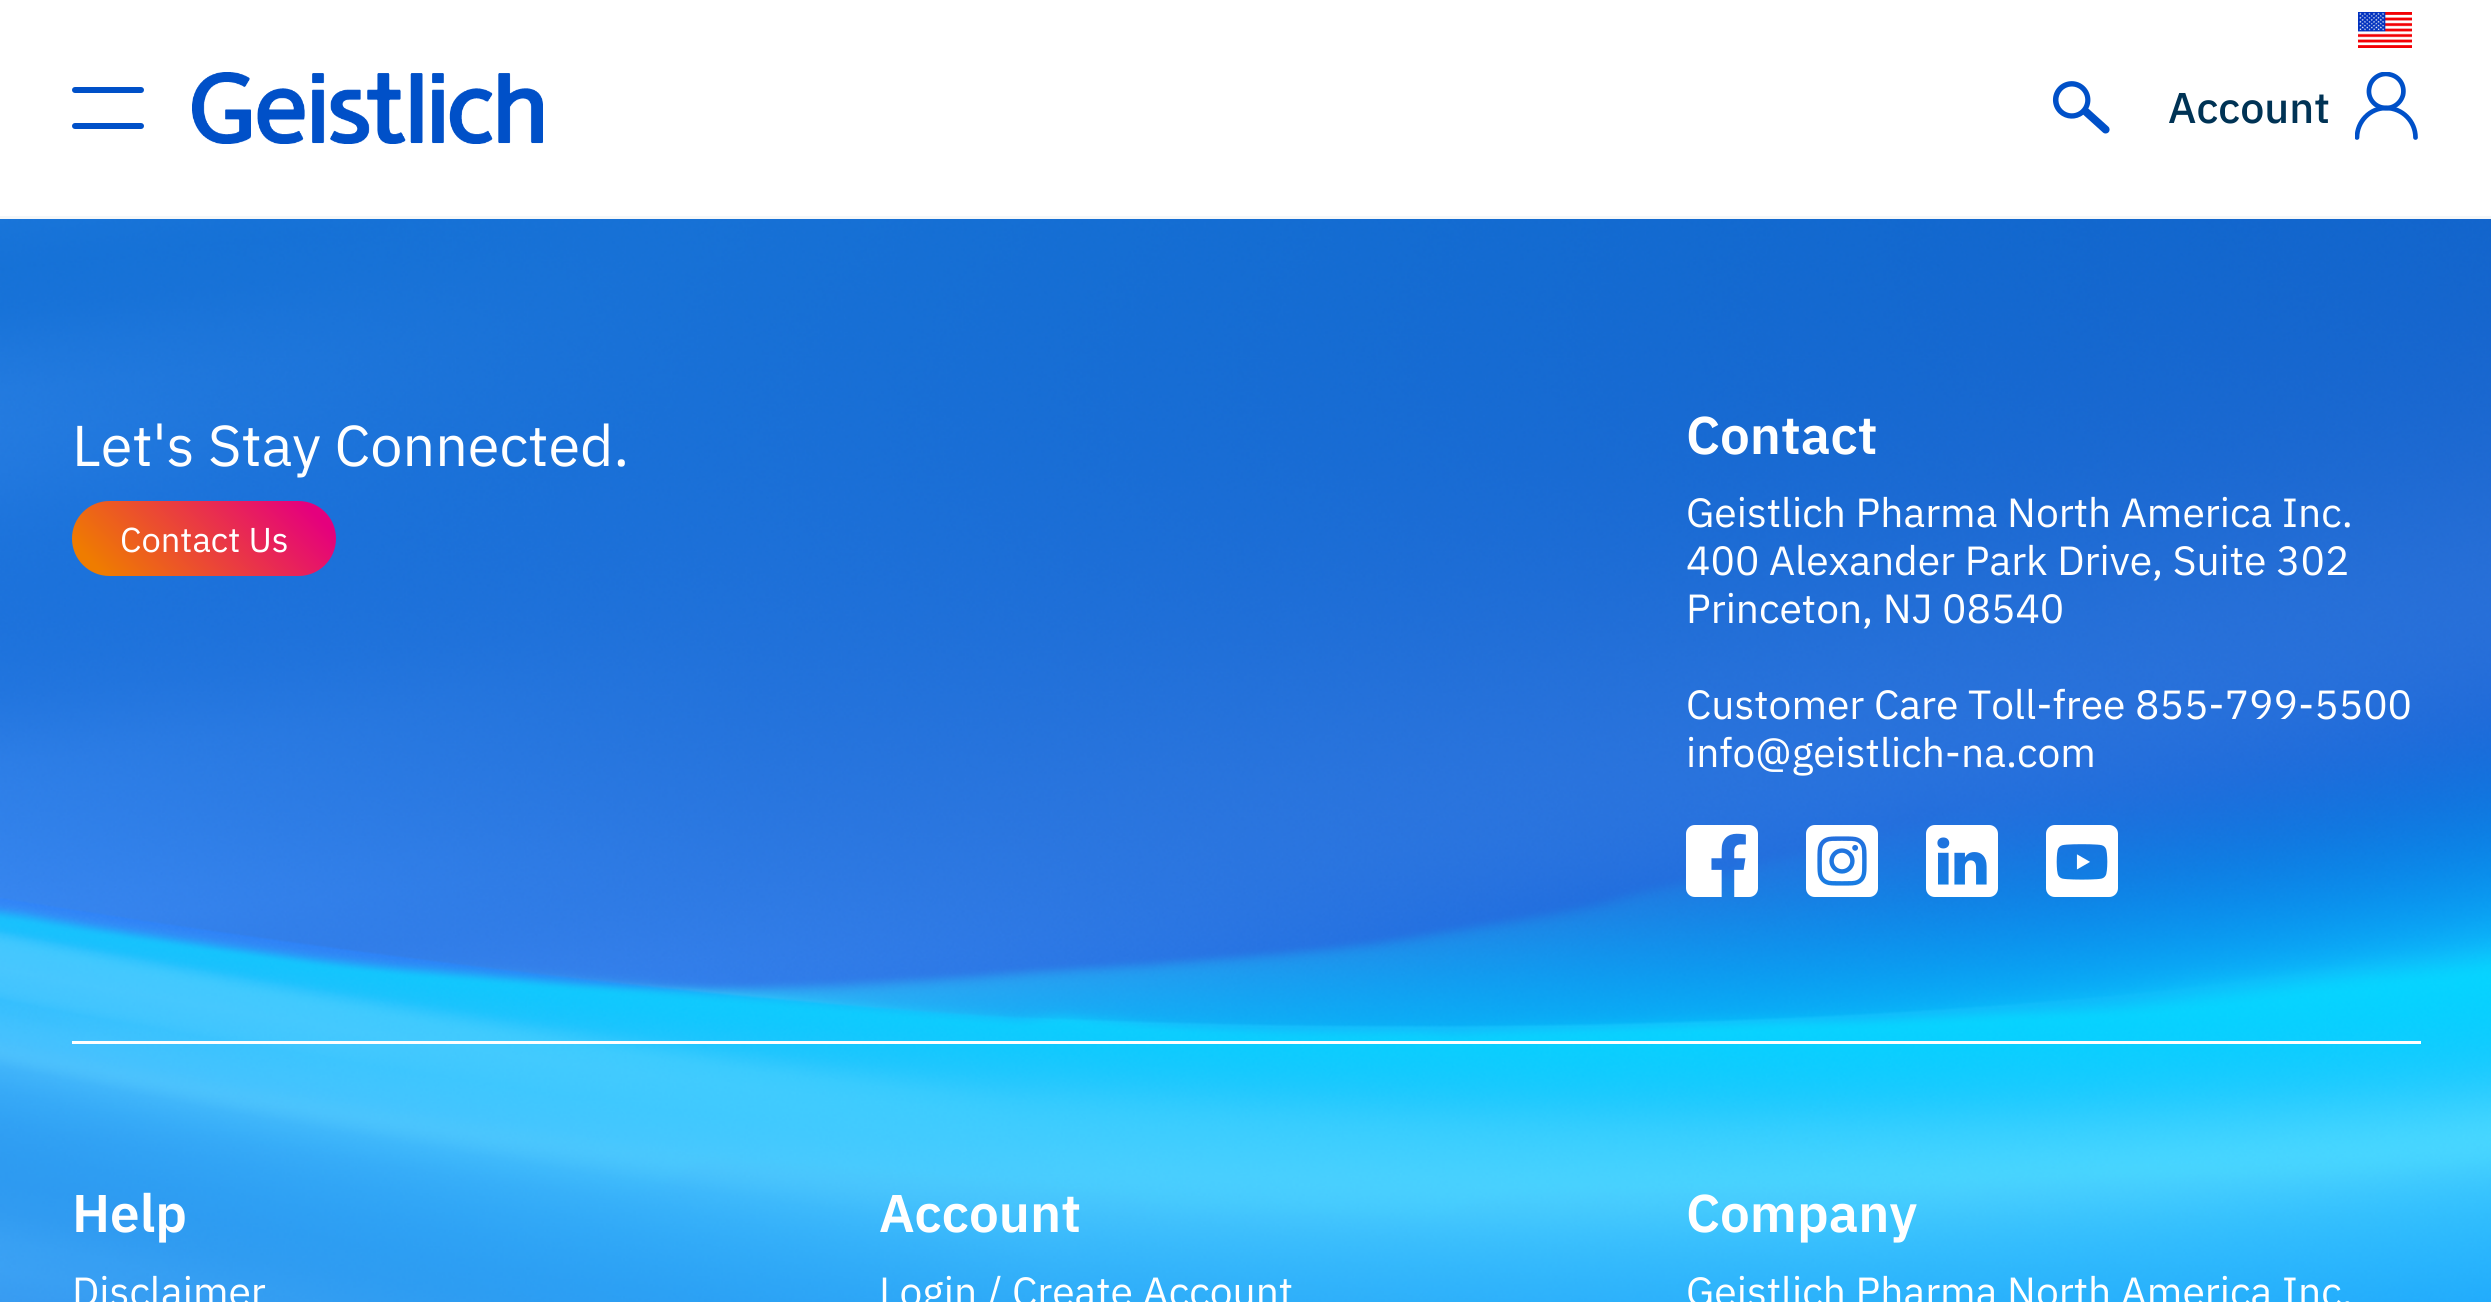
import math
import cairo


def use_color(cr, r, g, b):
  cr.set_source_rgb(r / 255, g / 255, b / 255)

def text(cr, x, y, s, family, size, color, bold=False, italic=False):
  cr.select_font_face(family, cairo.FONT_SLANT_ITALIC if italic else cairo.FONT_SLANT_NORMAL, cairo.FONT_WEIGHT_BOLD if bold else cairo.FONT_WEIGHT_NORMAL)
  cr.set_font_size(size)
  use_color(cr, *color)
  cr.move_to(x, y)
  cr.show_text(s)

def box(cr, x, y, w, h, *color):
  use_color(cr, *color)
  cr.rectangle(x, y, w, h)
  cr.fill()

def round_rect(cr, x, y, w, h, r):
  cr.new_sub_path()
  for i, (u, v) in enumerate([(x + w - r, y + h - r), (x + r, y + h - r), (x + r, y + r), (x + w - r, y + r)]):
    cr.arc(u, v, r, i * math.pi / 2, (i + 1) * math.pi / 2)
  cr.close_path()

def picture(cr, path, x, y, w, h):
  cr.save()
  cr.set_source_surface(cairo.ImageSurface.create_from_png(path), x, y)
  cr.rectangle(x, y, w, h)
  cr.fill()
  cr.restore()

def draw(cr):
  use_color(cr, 255, 255, 255)
  cr.paint()
  box(cr, 0, 216, 2491, 3, 245, 247, 248)
  picture(cr, "img_01.png", 2358, 12, 54, 36)
  use_color(cr, 0, 80, 200)
  round_rect(cr, 72, 87, 72, 6, 3)
  cr.fill()
  round_rect(cr, 72, 123, 72, 6, 3)
  cr.fill()
  picture(cr, "img_02.png", 192, 72, 351, 72)
  picture(cr, "img_03.png", 2052, 81, 58, 53)
  cr.save()
  cr.rectangle(2355, 72, 66, 72)
  cr.clip()
  cr.new_path()
  cr.move_to(2369.5, 87)
  cr.curve_to(2371.5, 78, 2381, 72, 2390, 74.5)
  cr.curve_to(2399.5, 76.5, 2405, 85.5, 2403, 95)
  cr.curve_to(2400.5, 104, 2391.5, 110, 2382, 107.5)
  cr.curve_to(2373, 105.5, 2367, 96.5, 2369.5, 87)
  cr.close_path()
  cr.set_line_width(4.7)
  cr.set_line_cap(cairo.LINE_CAP_ROUND)
  cr.set_line_join(cairo.LINE_JOIN_ROUND)
  cr.stroke()
  cr.new_path()
  cr.move_to(2357, 137.5)
  cr.curve_to(2357, 121.5, 2370, 108, 2386, 108)
  cr.curve_to(2402.5, 108, 2415.5, 121.5, 2415.5, 137.5)
  cr.stroke()
  cr.restore()
  picture(cr, "img_04.png", 0, 219, 2491, 1083)
  gradient = cairo.LinearGradient(119, 623, 289, 454)
  gradient.add_color_stop_rgba(0.1, 0.937, 0.486, 0, 1)
  gradient.add_color_stop_rgba(0.9, 0.898, 0, 0.49, 1)
  cr.set_source(gradient)
  round_rect(cr, 72, 501, 264, 75, 37.5)
  cr.fill()
  picture(cr, "img_05.png", 1686, 825, 72, 72)
  picture(cr, "img_06.png", 1806, 825, 72, 72)
  picture(cr, "img_07.png", 1926, 825, 72, 72)
  picture(cr, "img_08.png", 2046, 825, 72, 72)
  box(cr, 72, 1041, 2349, 3, 255, 255, 255)
  text(cr, 2168, 123, "Account", "IBM Plex Sans Medium", 43, (0, 51, 85))
  text(cr, 72, 466, "Let's Stay Connected.", "IBM Plex Sans", 57.5, (255, 255, 255))
  text(cr, 120, 552, "Contact Us", "IBM Plex Sans", 34.5, (255, 255, 255))
  text(cr, 1686, 454, "Contact", "IBM Plex Sans SemiBold", 53, (255, 255, 255))
  text(cr, 1686, 527, "Geistlich Pharma North America Inc.", "IBM Plex Sans", 40.75, (255, 255, 255))
  text(cr, 1686, 575, "400 Alexander Park Drive, Suite 302", "IBM Plex Sans", 40.75, (255, 255, 255))
  text(cr, 1686, 623, "Princeton, NJ 08540", "IBM Plex Sans", 40.75, (255, 255, 255))
  text(cr, 1686, 719, "Customer Care Toll-free 855-799-5500", "IBM Plex Sans", 40.75, (255, 255, 255))
  text(cr, 1686, 767, "info@geistlich-na.com", "IBM Plex Sans", 40.75, (255, 255, 255))
  text(cr, 72, 1232, "Help", "IBM Plex Sans SemiBold", 53, (255, 255, 255))
  text(cr, 72, 1306, "Disclaimer", "IBM Plex Sans", 40.75, (255, 255, 255))
  text(cr, 879, 1232, "Account", "IBM Plex Sans SemiBold", 53, (255, 255, 255))
  text(cr, 879, 1306, "Login / Create Account", "IBM Plex Sans", 40.75, (255, 255, 255))
  text(cr, 1686, 1232, "Company", "IBM Plex Sans SemiBold", 53, (255, 255, 255))
  text(cr, 1686, 1306, "Geistlich Pharma North America Inc.", "IBM Plex Sans", 40.75, (255, 255, 255))


surface = cairo.ImageSurface(cairo.FORMAT_RGB24, 2491, 1302)
cr = cairo.Context(surface)
options = cairo.FontOptions()
options.set_hint_metrics(cairo.HINT_METRICS_OFF)
options.set_hint_style(cairo.HINT_STYLE_NONE)
cr.set_font_options(options)
cr.set_miter_limit(4)
draw(cr)
surface.write_to_png("out.png")
